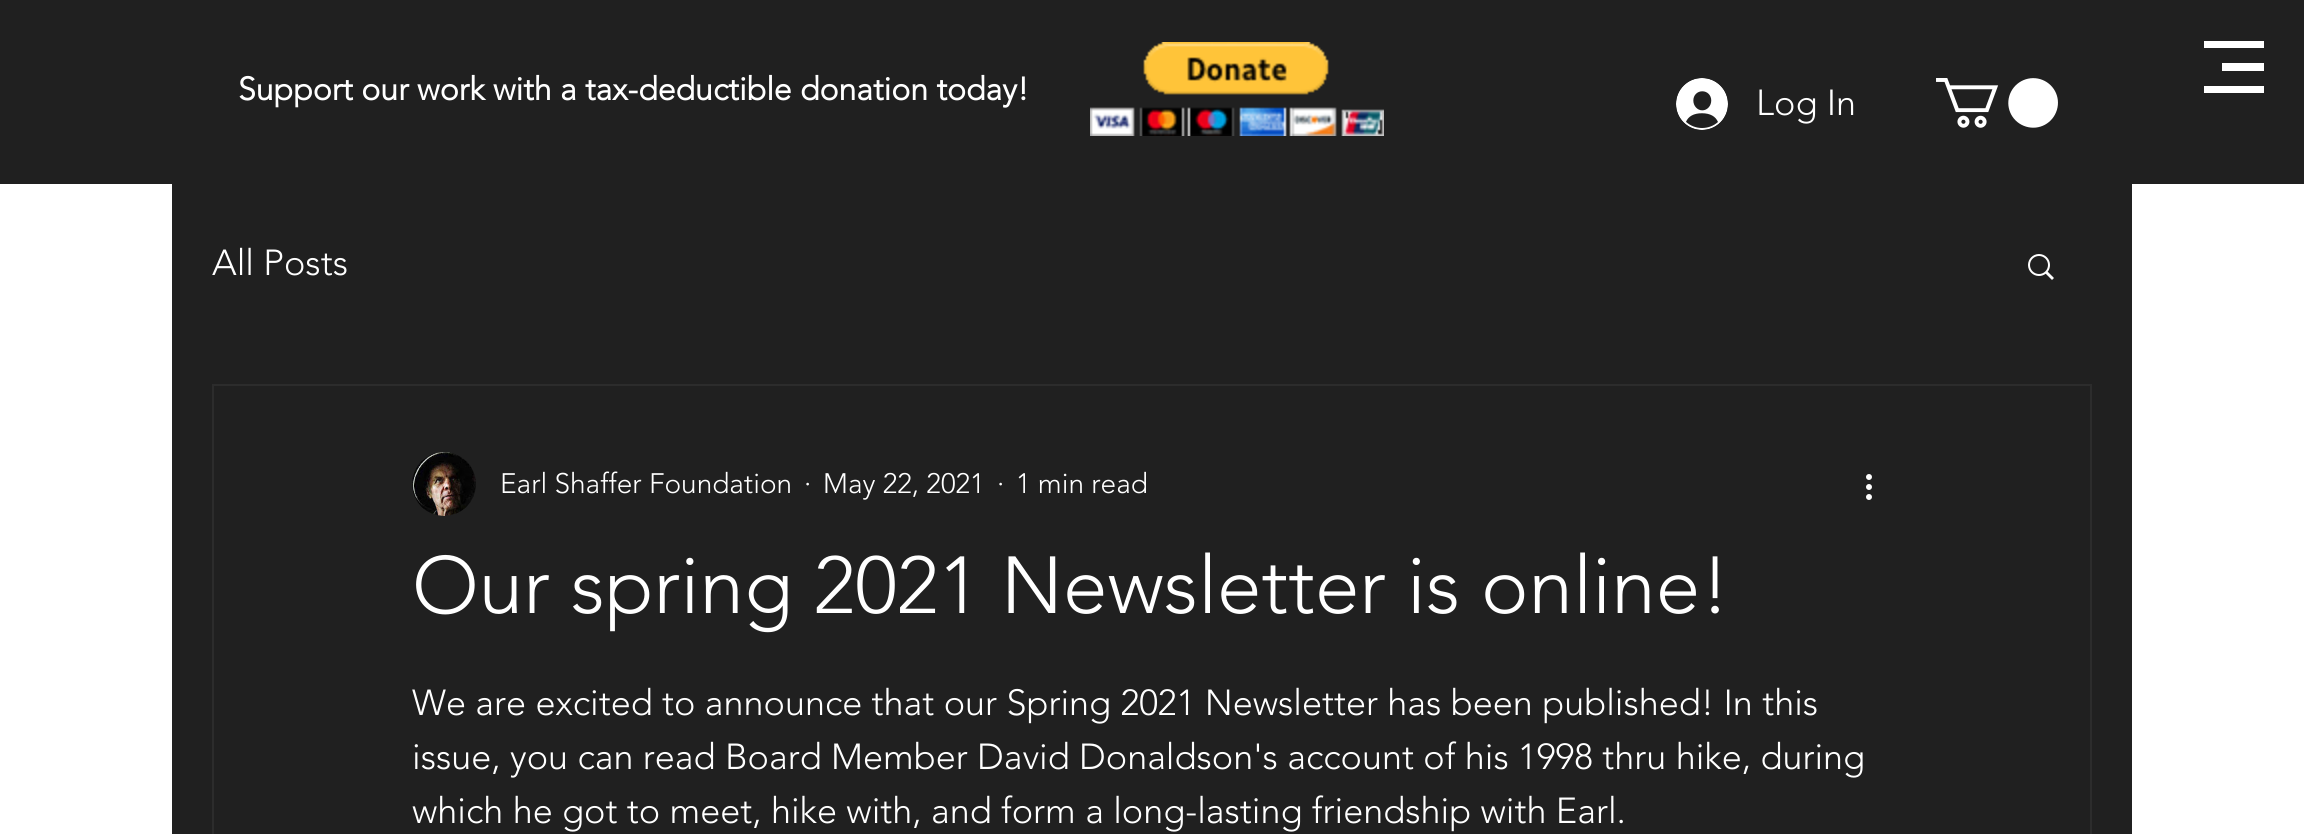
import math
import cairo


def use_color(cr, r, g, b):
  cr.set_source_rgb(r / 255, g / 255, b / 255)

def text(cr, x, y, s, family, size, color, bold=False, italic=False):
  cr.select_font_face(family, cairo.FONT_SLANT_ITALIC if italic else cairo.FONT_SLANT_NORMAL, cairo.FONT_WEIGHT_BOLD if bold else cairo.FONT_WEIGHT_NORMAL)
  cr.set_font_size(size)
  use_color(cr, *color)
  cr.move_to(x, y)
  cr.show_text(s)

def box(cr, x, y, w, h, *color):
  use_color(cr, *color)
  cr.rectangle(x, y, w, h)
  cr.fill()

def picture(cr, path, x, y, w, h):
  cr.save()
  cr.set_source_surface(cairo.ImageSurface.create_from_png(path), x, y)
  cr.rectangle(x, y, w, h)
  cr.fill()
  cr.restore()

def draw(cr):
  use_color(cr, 255, 255, 255)
  cr.paint()
  box(cr, 0, 0, 2304, 184, 32, 32, 32)
  box(cr, 2204, 41, 60, 7, 255, 255, 255)
  box(cr, 2222, 63, 42, 8, 255, 255, 255)
  box(cr, 2204, 86, 60, 7, 255, 255, 255)
  picture(cr, "img_01.png", 1090, 42, 294, 94)
  picture(cr, "img_02.png", 1676, 78, 52, 52)
  picture(cr, "img_03.png", 1936, 78, 122, 50)
  box(cr, 172, 184, 1960, 650, 32, 32, 32)
  picture(cr, "img_04.png", 2028, 254, 26, 26)
  cr.rectangle(213, 385, 1878, 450)
  use_color(cr, 44, 44, 44)
  cr.stroke()
  picture(cr, "img_05.png", 412, 452, 64, 64)
  picture(cr, "img_06.png", 1866, 474, 6, 26)
  text(cr, 238, 100, "Support our work with a tax-deductible donation today!", "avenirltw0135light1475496", 32, (255, 255, 255), bold=True)
  text(cr, 1756, 115, "Log In", "avenirltw0135light1475496 Light", 36, (255, 255, 255))
  text(cr, 212, 275, "All Posts", "avenirltw0135light1475496 Light", 36, (255, 255, 255))
  text(cr, 500, 493, "Earl Shaffer Foundation", "avenirltw0135light1475496 Light", 28, (255, 255, 255))
  text(cr, 804, 493, "·", "avenirltw0135light1475496 Light", 28, (255, 255, 255))
  text(cr, 823, 493, "May 22, 2021", "avenirltw0135light1475496 Light", 28, (255, 255, 255))
  text(cr, 997, 493, "·", "avenirltw0135light1475496 Light", 28, (255, 255, 255))
  text(cr, 1016, 493, "1 min read", "avenirltw0135light1475496 Light", 28, (255, 255, 255))
  text(cr, 412, 613, "Our spring 2021 Newsletter is online!", "avenirltw0135light1475496 Light", 80, (255, 255, 255))
  text(cr, 412, 715, "We are excited to announce that our Spring 2021 Newsletter has been published! In this", "avenirltw0135light1475496 Light", 36, (255, 255, 255))
  text(cr, 412, 769, "issue, you can read Board Member David Donaldson's account of his 1998 thru hike, during", "avenirltw0135light1475496 Light", 36, (255, 255, 255))
  text(cr, 412, 823, "which he got to meet, hike with, and form a long-lasting friendship with Earl.", "avenirltw0135light1475496 Light", 36, (255, 255, 255))


surface = cairo.ImageSurface(cairo.FORMAT_RGB24, 2304, 834)
cr = cairo.Context(surface)
options = cairo.FontOptions()
options.set_hint_metrics(cairo.HINT_METRICS_OFF)
options.set_hint_style(cairo.HINT_STYLE_NONE)
cr.set_font_options(options)
cr.set_miter_limit(4)
draw(cr)
surface.write_to_png("out.png")
